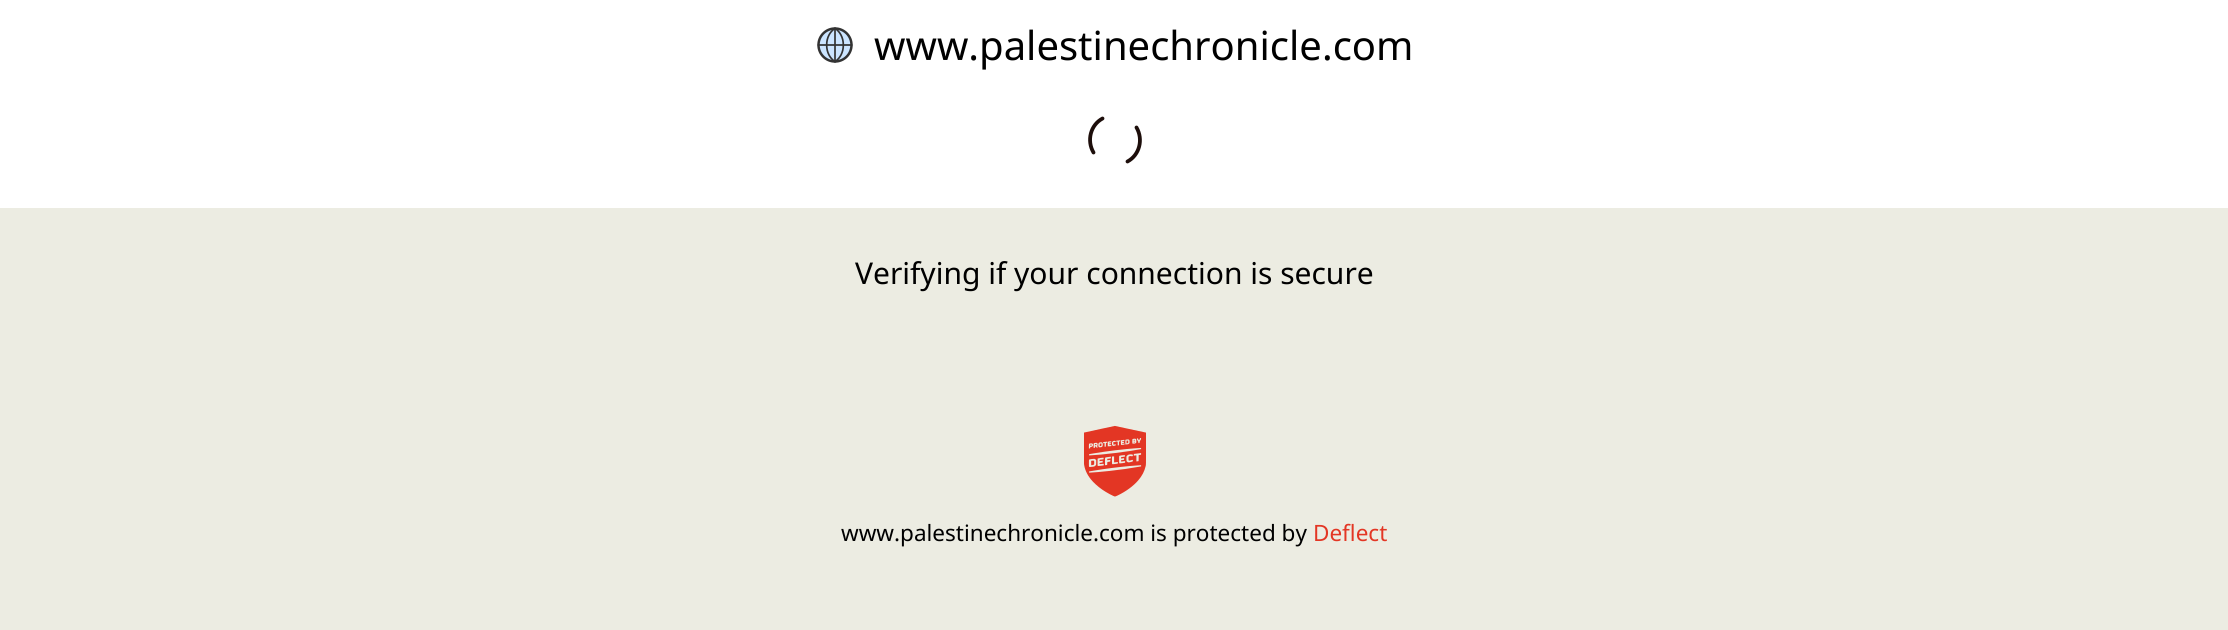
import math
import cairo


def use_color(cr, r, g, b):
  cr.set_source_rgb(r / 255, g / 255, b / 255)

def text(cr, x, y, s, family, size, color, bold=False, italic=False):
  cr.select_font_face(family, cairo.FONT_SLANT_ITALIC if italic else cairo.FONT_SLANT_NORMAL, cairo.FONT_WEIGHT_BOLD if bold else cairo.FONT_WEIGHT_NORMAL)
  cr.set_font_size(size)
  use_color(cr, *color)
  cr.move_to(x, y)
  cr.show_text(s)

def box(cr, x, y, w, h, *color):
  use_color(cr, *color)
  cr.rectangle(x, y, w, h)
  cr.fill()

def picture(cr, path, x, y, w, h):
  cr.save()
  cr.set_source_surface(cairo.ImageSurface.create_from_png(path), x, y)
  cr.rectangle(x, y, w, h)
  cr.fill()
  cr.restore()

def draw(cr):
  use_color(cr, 255, 255, 255)
  cr.paint()
  picture(cr, "img_01.png", 817, 27, 36, 36)
  cr.new_path()
  cr.move_to(1093.5, 152.5)
  cr.curve_to(1086.5, 140.5, 1090.5, 125, 1102.5, 118.5)
  cr.move_to(1136.5, 127.5)
  cr.curve_to(1143.5, 139.5, 1139.5, 155, 1127.5, 161.5)
  use_color(cr, 29, 14, 11)
  cr.set_line_width(3.8)
  cr.set_line_cap(cairo.LINE_CAP_ROUND)
  cr.stroke()
  box(cr, 0, 208, 2228, 422, 236, 236, 226)
  picture(cr, "img_02.png", 1084, 425, 62, 72)
  text(cr, 874, 60, "www.palestinechronicle.com", "Noto Sans", 40, (0, 0, 0))
  text(cr, 855, 284, "Verifying if your connection is secure", "Noto Sans", 30, (0, 0, 0))
  text(cr, 841, 541, "www.palestinechronicle.com is protected by", "Noto Sans", 22.5, (0, 0, 0))
  text(cr, 1313, 541, "Deflect", "Noto Sans", 22.5, (227, 54, 36))


surface = cairo.ImageSurface(cairo.FORMAT_RGB24, 2228, 630)
cr = cairo.Context(surface)
options = cairo.FontOptions()
options.set_hint_metrics(cairo.HINT_METRICS_OFF)
options.set_hint_style(cairo.HINT_STYLE_NONE)
cr.set_font_options(options)
cr.set_miter_limit(4)
draw(cr)
surface.write_to_png("out.png")
